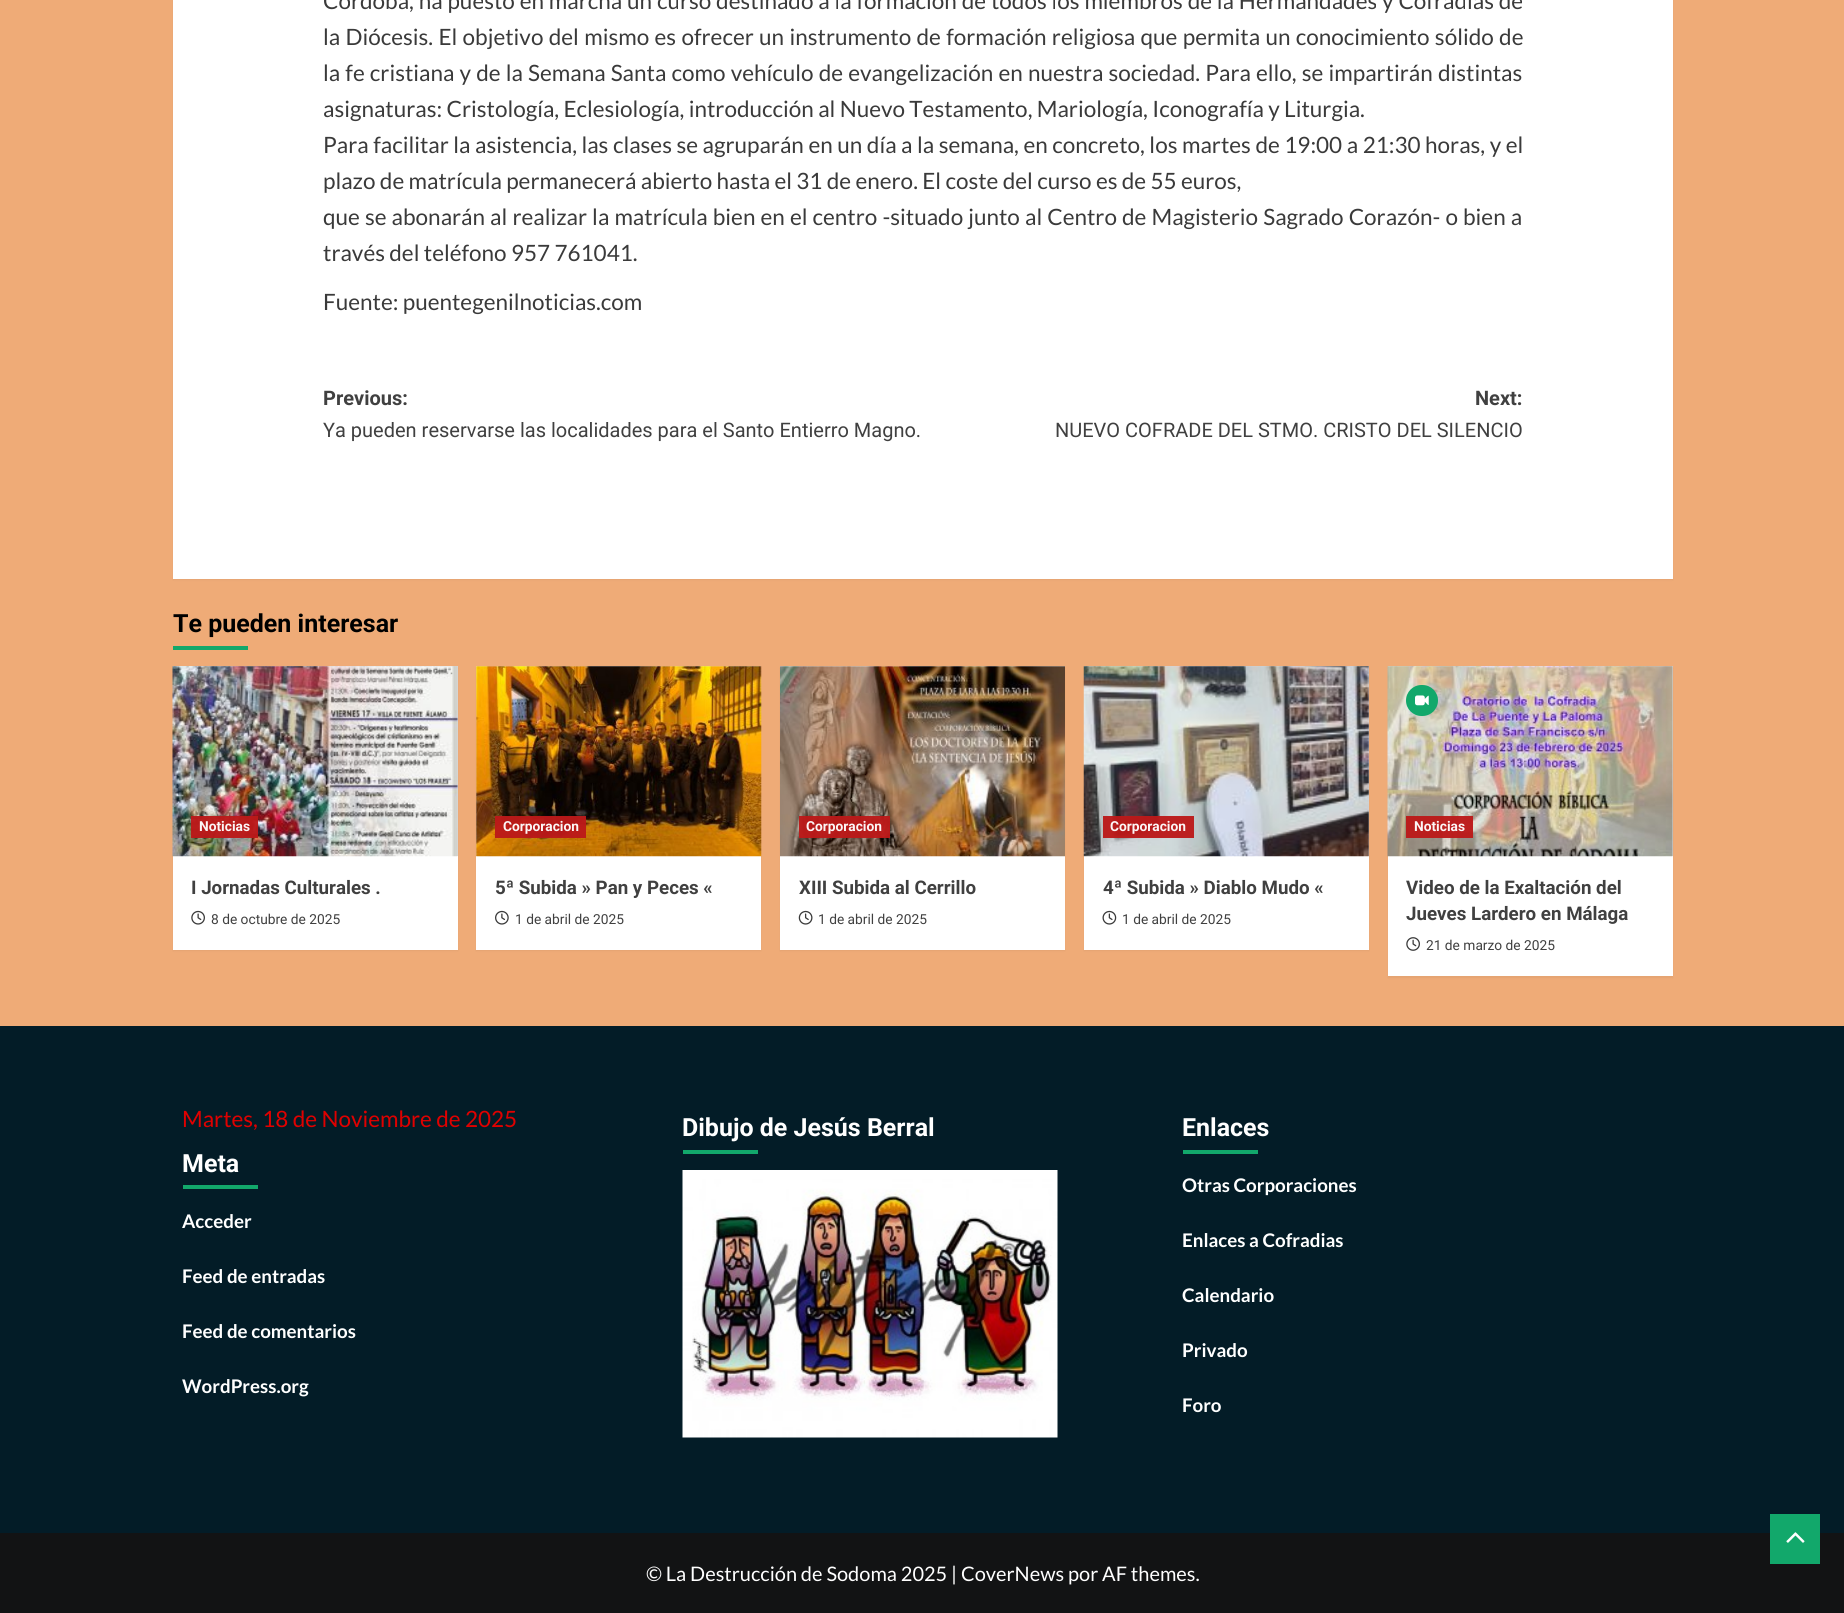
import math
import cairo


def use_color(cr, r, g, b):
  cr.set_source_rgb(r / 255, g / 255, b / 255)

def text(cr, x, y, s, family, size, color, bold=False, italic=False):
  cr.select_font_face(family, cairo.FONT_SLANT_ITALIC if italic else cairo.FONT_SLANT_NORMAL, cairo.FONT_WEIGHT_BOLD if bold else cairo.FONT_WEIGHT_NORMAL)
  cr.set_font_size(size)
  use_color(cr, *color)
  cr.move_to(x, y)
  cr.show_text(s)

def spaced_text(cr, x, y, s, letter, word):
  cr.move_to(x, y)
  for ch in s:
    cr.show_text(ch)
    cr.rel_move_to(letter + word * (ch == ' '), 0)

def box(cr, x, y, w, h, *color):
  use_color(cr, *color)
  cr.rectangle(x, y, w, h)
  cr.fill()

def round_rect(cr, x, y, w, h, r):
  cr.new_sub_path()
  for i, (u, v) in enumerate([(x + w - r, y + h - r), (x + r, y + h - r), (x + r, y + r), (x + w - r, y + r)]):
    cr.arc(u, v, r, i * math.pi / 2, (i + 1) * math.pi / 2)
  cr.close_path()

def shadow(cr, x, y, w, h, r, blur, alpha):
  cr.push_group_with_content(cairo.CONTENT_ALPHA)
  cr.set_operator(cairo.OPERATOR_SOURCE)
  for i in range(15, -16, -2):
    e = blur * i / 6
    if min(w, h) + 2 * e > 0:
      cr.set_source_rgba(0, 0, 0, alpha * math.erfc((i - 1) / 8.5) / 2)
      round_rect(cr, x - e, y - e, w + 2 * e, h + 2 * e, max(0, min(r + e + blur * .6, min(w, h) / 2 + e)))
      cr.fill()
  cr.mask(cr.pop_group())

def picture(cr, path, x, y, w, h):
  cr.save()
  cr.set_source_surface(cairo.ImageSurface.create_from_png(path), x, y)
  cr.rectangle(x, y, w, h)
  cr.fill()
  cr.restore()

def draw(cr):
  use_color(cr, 239, 171, 119)
  cr.paint()
  use_color(cr, 0, 0, 0)
  shadow(cr, 173, -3, 1500, 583, 0, 1, 0.05)
  box(cr, 173, 0, 1500, 579, 255, 255, 255)
  box(cr, 173, 646, 75, 4, 18, 168, 107)
  use_color(cr, 0, 0, 0)
  shadow(cr, 173, 668, 285, 283, 0, 1, 0.05)
  box(cr, 173, 856, 285, 94, 255, 255, 255)
  box(cr, 173, 666, 285, 190, 216, 216, 216)
  picture(cr, "img_01.png", 172, 666, 286, 191)
  cr.set_source_rgba(0.733, 0.098, 0.098, 0.96)
  cr.rectangle(191, 816, 67, 22)
  cr.fill()
  picture(cr, "img_02.png", 191, 910, 14, 15)
  use_color(cr, 0, 0, 0)
  shadow(cr, 476, 668, 285, 283, 0, 1, 0.05)
  box(cr, 476, 856, 285, 94, 255, 255, 255)
  box(cr, 476, 666, 285, 190, 216, 216, 216)
  picture(cr, "img_03.png", 476, 666, 286, 191)
  cr.set_source_rgba(0.733, 0.098, 0.098, 0.96)
  cr.rectangle(495, 816, 91, 22)
  cr.fill()
  picture(cr, "img_04.png", 495, 910, 14, 15)
  use_color(cr, 0, 0, 0)
  shadow(cr, 780, 668, 285, 283, 0, 1, 0.05)
  box(cr, 780, 666, 285, 284, 255, 255, 255)
  picture(cr, "img_05.png", 780, 666, 285, 191)
  cr.set_source_rgba(0.733, 0.098, 0.098, 0.96)
  cr.rectangle(799, 816, 91, 22)
  cr.fill()
  picture(cr, "img_06.png", 798, 910, 15, 15)
  use_color(cr, 0, 0, 0)
  shadow(cr, 1084, 668, 285, 283, 0, 1, 0.05)
  box(cr, 1084, 856, 285, 94, 255, 255, 255)
  box(cr, 1084, 666, 285, 190, 216, 216, 216)
  picture(cr, "img_07.png", 1083, 666, 286, 191)
  cr.set_source_rgba(0.733, 0.098, 0.098, 0.96)
  cr.rectangle(1103, 816, 91, 22)
  cr.fill()
  picture(cr, "img_08.png", 1102, 910, 15, 15)
  use_color(cr, 0, 0, 0)
  shadow(cr, 1388, 668, 285, 310, 0, 1, 0.05)
  box(cr, 1388, 856, 285, 120, 255, 255, 255)
  box(cr, 1388, 666, 285, 190, 216, 216, 216)
  picture(cr, "img_09.png", 1387, 666, 286, 191)
  use_color(cr, 18, 168, 107)
  round_rect(cr, 1406, 685, 32, 31, 15.5)
  cr.fill()
  picture(cr, "img_10.png", 1415, 695, 14, 11)
  cr.set_source_rgba(0.733, 0.098, 0.098, 0.96)
  cr.rectangle(1406, 816, 67, 22)
  cr.fill()
  picture(cr, "img_11.png", 1406, 937, 14, 14)
  box(cr, 0, 1026, 1844, 507, 3, 28, 39)
  box(cr, 183, 1185, 75, 4, 18, 168, 107)
  box(cr, 683, 1150, 75, 4, 18, 168, 107)
  picture(cr, "img_12.png", 682, 1170, 376, 268)
  box(cr, 1183, 1150, 75, 4, 18, 168, 107)
  box(cr, 0, 1533, 1844, 80, 18, 19, 20)
  box(cr, 1770, 1514, 50, 50, 18, 168, 107)
  picture(cr, "img_13.png", 1786, 1532, 19, 11)
  cr.select_font_face("Lato")
  cr.set_font_size(22.5)
  use_color(cr, 58, 58, 58)
  spaced_text(cr, 323, 9, "Córdoba, ha puesto en marcha un curso destinado a la formación de todos los miembros de la Hermandades y Cofradías de", 0, 0.5)
  spaced_text(cr, 323, 45, "la Diócesis. El objetivo del mismo es ofrecer un instrumento de formación religiosa que permita un conocimiento sólido de", 0, 1)
  spaced_text(cr, 323, 81, "la fe cristiana y de la Semana Santa como vehículo de evangelización en nuestra sociedad. Para ello, se impartirán distintas", 0, 0.8)
  text(cr, 323, 117, "asignaturas: Cristología, Eclesiología, introducción al Nuevo Testamento, Mariología, Iconografía y Liturgia.", "Lato", 22.5, (58, 58, 58))
  spaced_text(cr, 323, 153, "Para facilitar la asistencia, las clases se agruparán en un día a la semana, en concreto, los martes de 19:00 a 21:30 horas, y el", 0, 0.2)
  text(cr, 323, 189, "plazo de matrícula permanecerá abierto hasta el 31 de enero. El coste del curso es de 55 euros,", "Lato", 22.5, (58, 58, 58))
  spaced_text(cr, 323, 225, "que se abonarán al realizar la matrícula bien en el centro -situado junto al Centro de Magisterio Sagrado Corazón- o bien a", 0, 0.75)
  text(cr, 323, 261, "través del teléfono 957 761041.", "Lato", 22.5, (58, 58, 58))
  text(cr, 323, 310, "Fuente: puentegenilnoticias.com", "Lato", 22.5, (58, 58, 58))
  text(cr, 323, 405, "Previous:", "Roboto", 20, (64, 64, 64), bold=True)
  text(cr, 323, 437, "Ya pueden reservarse las localidades para el Santo Entierro Magno.", "Roboto", 20, (64, 64, 64))
  text(cr, 1475, 405, "Next:", "Roboto", 20, (64, 64, 64), bold=True)
  text(cr, 1055, 437, "NUEVO COFRADE DEL STMO. CRISTO DEL SILENCIO", "Roboto", 20, (64, 64, 64))
  text(cr, 173, 632, "Te pueden interesar", "Roboto", 25, (0, 0, 0), bold=True)
  text(cr, 199, 831, "Noticias", "Roboto", 13.75, (252, 246, 246), bold=True)
  text(cr, 191, 894, "I Jornadas Culturales .", "Roboto", 18.75, (64, 64, 64), bold=True)
  text(cr, 211, 924, "8 de octubre de 2025", "Roboto", 13.75, (64, 64, 64))
  text(cr, 503, 831, "Corporacion", "Roboto", 13.75, (252, 246, 246), bold=True)
  text(cr, 495, 894, "5ª Subida » Pan y Peces «", "Roboto", 18.75, (64, 64, 64), bold=True)
  text(cr, 515, 924, "1 de abril de 2025", "Roboto", 13.75, (64, 64, 64))
  text(cr, 806, 831, "Corporacion", "Roboto", 13.75, (252, 246, 246), bold=True)
  text(cr, 799, 894, "XIII Subida al Cerrillo", "Roboto", 18.75, (64, 64, 64), bold=True)
  text(cr, 818, 924, "1 de abril de 2025", "Roboto", 13.75, (64, 64, 64))
  text(cr, 1110, 831, "Corporacion", "Roboto", 13.75, (252, 246, 246), bold=True)
  text(cr, 1103, 894, "4ª Subida » Diablo Mudo «", "Roboto", 18.75, (64, 64, 64), bold=True)
  text(cr, 1122, 924, "1 de abril de 2025", "Roboto", 13.75, (64, 64, 64))
  text(cr, 1414, 831, "Noticias", "Roboto", 13.75, (252, 246, 246), bold=True)
  text(cr, 1406, 894, "Video de la Exaltación del", "Roboto", 18.75, (64, 64, 64), bold=True)
  text(cr, 1406, 920, "Jueves Lardero en Málaga", "Roboto", 18.75, (64, 64, 64), bold=True)
  text(cr, 1426, 950, "21 de marzo de 2025", "Roboto", 13.75, (64, 64, 64))
  text(cr, 182, 1127, "Martes, 18 de Noviembre de 2025", "Lato", 22.5, (224, 0, 0))
  text(cr, 182, 1172, "Meta", "Roboto", 25, (255, 255, 255), bold=True)
  text(cr, 182, 1228, "Acceder", "Lato", 18.75, (255, 255, 255), bold=True)
  text(cr, 182, 1283, "Feed de entradas", "Lato", 18.75, (255, 255, 255), bold=True)
  text(cr, 182, 1338, "Feed de comentarios", "Lato", 18.75, (255, 255, 255), bold=True)
  text(cr, 182, 1393, "WordPress.org", "Lato", 18.75, (255, 255, 255), bold=True)
  text(cr, 682, 1136, "Dibujo de Jesús Berral", "Roboto", 25, (255, 255, 255), bold=True)
  text(cr, 1182, 1136, "Enlaces", "Roboto", 25, (255, 255, 255), bold=True)
  text(cr, 1182, 1192, "Otras Corporaciones", "Lato", 18.75, (255, 255, 255), bold=True)
  text(cr, 1182, 1247, "Enlaces a Cofradias", "Lato", 18.75, (255, 255, 255), bold=True)
  text(cr, 1182, 1302, "Calendario", "Lato", 18.75, (255, 255, 255), bold=True)
  text(cr, 1182, 1357, "Privado", "Lato", 18.75, (255, 255, 255), bold=True)
  text(cr, 1182, 1412, "Foro", "Lato", 18.75, (255, 255, 255), bold=True)
  text(cr, 646, 1581, "© La Destrucción de Sodoma 2025 | CoverNews por AF themes.", "Lato", 20, (255, 255, 255))


surface = cairo.ImageSurface(cairo.FORMAT_RGB24, 1844, 1613)
cr = cairo.Context(surface)
options = cairo.FontOptions()
options.set_hint_metrics(cairo.HINT_METRICS_OFF)
options.set_hint_style(cairo.HINT_STYLE_NONE)
cr.set_font_options(options)
cr.set_miter_limit(4)
draw(cr)
surface.write_to_png("out.png")
